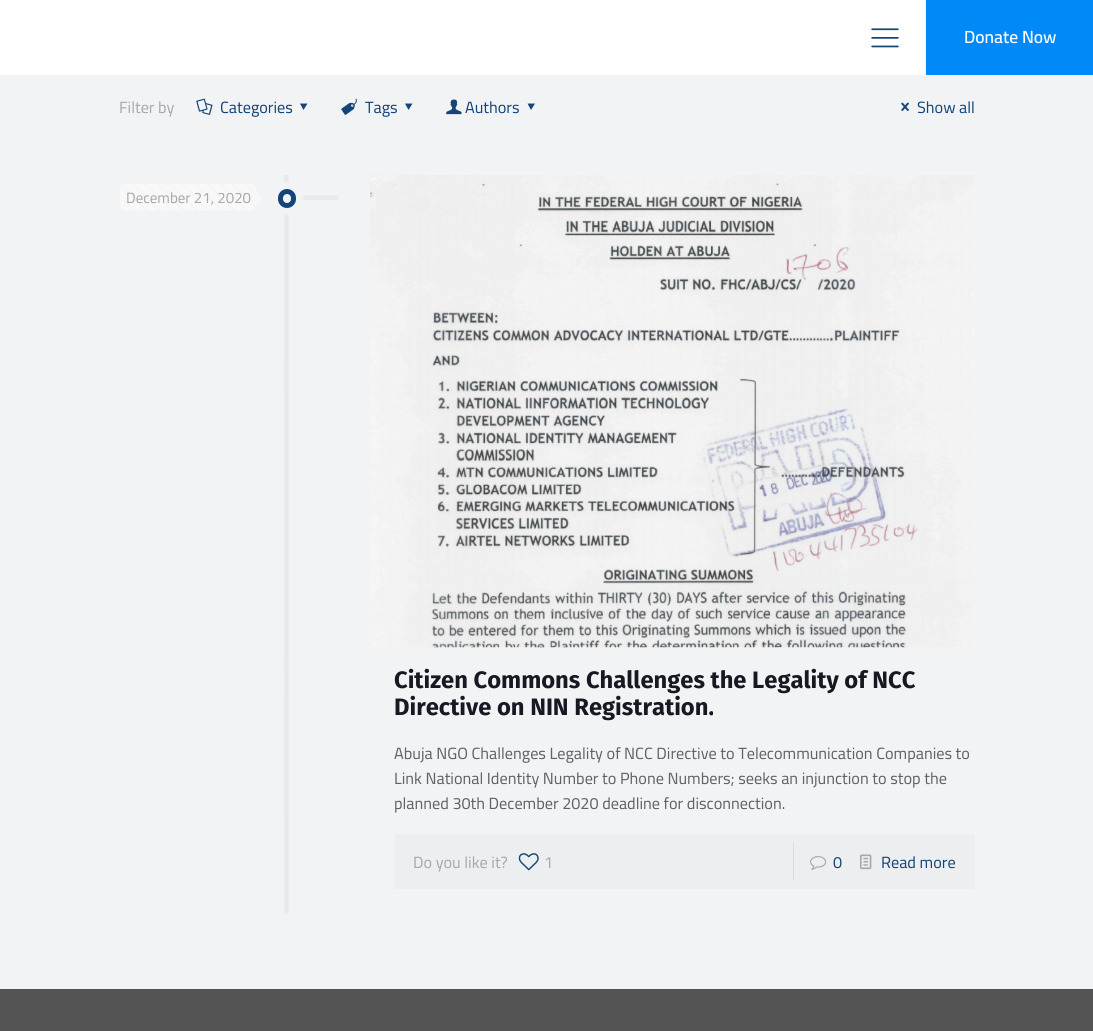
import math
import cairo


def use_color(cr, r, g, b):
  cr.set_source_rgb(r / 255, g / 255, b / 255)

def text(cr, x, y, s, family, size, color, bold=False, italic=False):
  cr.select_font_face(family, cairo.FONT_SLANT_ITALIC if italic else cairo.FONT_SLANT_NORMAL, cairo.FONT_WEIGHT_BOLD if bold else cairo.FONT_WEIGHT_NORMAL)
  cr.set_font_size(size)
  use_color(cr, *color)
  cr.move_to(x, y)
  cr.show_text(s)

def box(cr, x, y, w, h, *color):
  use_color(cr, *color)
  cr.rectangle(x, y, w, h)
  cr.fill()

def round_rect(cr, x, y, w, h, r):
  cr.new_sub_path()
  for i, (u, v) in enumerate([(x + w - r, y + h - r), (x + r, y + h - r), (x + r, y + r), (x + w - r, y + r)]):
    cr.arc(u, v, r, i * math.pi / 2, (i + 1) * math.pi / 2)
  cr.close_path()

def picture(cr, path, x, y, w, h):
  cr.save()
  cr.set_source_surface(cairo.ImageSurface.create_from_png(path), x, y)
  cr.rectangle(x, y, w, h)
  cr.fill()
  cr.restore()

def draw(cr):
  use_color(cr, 242, 243, 245)
  cr.paint()
  box(cr, 0, 0, 925, 75, 255, 255, 255)
  picture(cr, "img_01.png", 871, 28, 28, 20)
  box(cr, 926, 0, 167, 75, 0, 137, 247)
  box(cr, 925, 0, 1, 75, 242, 242, 242)
  picture(cr, "img_02.png", 196, 98, 17, 17)
  use_color(cr, 19, 69, 122)
  cr.new_path()
  cr.move_to(307.5, 103.5)
  cr.line_to(303.5, 110)
  cr.line_to(300, 103.5)
  cr.close_path()
  cr.fill()
  picture(cr, "img_03.png", 341, 98, 16, 17)
  cr.new_path()
  cr.move_to(412.5, 103.5)
  cr.line_to(408.5, 110)
  cr.line_to(405, 103.5)
  cr.close_path()
  cr.fill()
  picture(cr, "img_04.png", 446, 99, 16, 16)
  cr.new_path()
  cr.move_to(535, 103.5)
  cr.line_to(531, 110)
  cr.line_to(527.5, 103.5)
  cr.close_path()
  cr.fill()
  picture(cr, "img_05.png", 901, 102, 8, 9)
  picture(cr, "img_06.png", 284, 175, 55, 739)
  use_color(cr, 248, 248, 248)
  round_rect(cr, 120, 184, 136, 27, 5)
  cr.fill()
  picture(cr, "img_07.png", 124, 184, 132, 27)
  cr.new_path()
  cr.move_to(256, 204)
  cr.line_to(256, 191)
  cr.line_to(262.5, 197.5)
  cr.close_path()
  cr.fill()
  round_rect(cr, 280.5, 191.5, 13, 14, 6.5)
  use_color(cr, 19, 69, 122)
  cr.set_line_width(5)
  cr.stroke()
  picture(cr, "img_08.png", 370, 175, 605, 473)
  box(cr, 395, 834, 580, 55, 237, 238, 240)
  picture(cr, "img_09.png", 518, 853, 21, 18)
  box(cr, 793, 843, 1, 37, 218, 219, 221)
  picture(cr, "img_10.png", 810, 856, 17, 14)
  picture(cr, "img_11.png", 860, 854, 12, 16)
  box(cr, 0, 989, 1093, 42, 84, 84, 84)
  text(cr, 964, 43, "Donate Now", "Cairo SemiBold", 17.5, (255, 255, 255))
  text(cr, 119, 113, "Filter by", "Cairo", 16.25, (168, 168, 168))
  text(cr, 220, 113, "Categories", "Cairo", 16.25, (19, 69, 122))
  text(cr, 365, 113, "Tags", "Cairo", 16.25, (19, 69, 122))
  text(cr, 465, 113, "Authors", "Cairo", 16.25, (19, 69, 122))
  text(cr, 917, 113, "Show all", "Cairo", 16.25, (19, 69, 122))
  text(cr, 126, 203, "December 21, 2020", "Cairo", 15, (168, 168, 168))
  text(cr, 394, 688, "Citizen Commons Challenges the Legality of NCC", "Fira Sans", 23.75, (22, 25, 34), bold=True)
  text(cr, 394, 715, "Directive on NIN Registration.", "Fira Sans", 23.75, (22, 25, 34), bold=True)
  text(cr, 394, 759, "Abuja NGO Challenges Legality of NCC Directive to Telecommunication Companies to", "Cairo", 16.25, (98, 98, 98))
  text(cr, 394, 784, "Link National Identity Number to Phone Numbers; seeks an injunction to stop the", "Cairo", 16.25, (98, 98, 98))
  text(cr, 394, 809, "planned 30th December 2020 deadline for disconnection.", "Cairo", 16.25, (98, 98, 98))
  text(cr, 413, 868, "Do you like it?", "Cairo", 16.25, (168, 168, 168))
  text(cr, 544, 868, "1", "Cairo", 16.25, (168, 168, 168))
  text(cr, 833, 868, "0", "Cairo", 16.25, (19, 69, 122))
  text(cr, 881, 868, "Read more", "Cairo", 16.25, (19, 69, 122))


surface = cairo.ImageSurface(cairo.FORMAT_RGB24, 1093, 1031)
cr = cairo.Context(surface)
options = cairo.FontOptions()
options.set_hint_metrics(cairo.HINT_METRICS_OFF)
options.set_hint_style(cairo.HINT_STYLE_NONE)
cr.set_font_options(options)
cr.set_miter_limit(4)
draw(cr)
surface.write_to_png("out.png")
